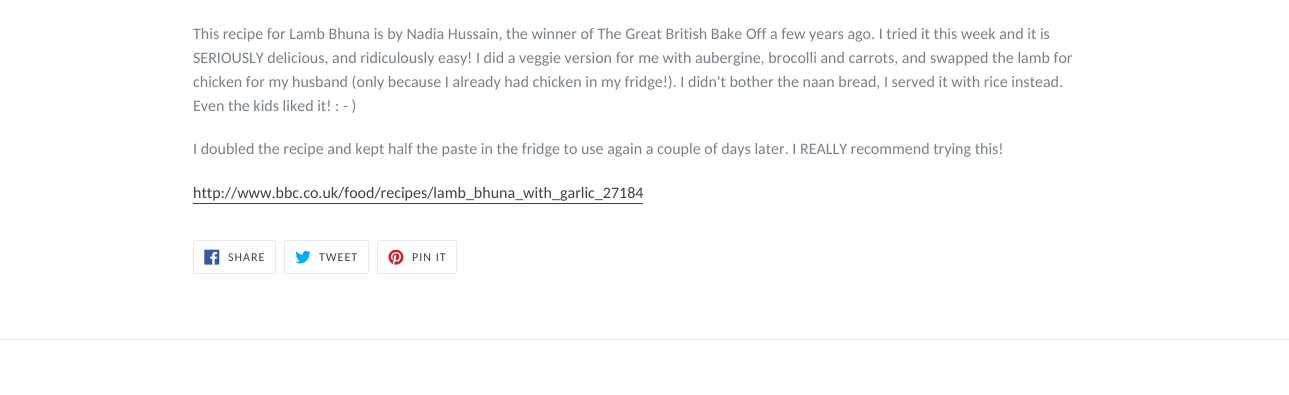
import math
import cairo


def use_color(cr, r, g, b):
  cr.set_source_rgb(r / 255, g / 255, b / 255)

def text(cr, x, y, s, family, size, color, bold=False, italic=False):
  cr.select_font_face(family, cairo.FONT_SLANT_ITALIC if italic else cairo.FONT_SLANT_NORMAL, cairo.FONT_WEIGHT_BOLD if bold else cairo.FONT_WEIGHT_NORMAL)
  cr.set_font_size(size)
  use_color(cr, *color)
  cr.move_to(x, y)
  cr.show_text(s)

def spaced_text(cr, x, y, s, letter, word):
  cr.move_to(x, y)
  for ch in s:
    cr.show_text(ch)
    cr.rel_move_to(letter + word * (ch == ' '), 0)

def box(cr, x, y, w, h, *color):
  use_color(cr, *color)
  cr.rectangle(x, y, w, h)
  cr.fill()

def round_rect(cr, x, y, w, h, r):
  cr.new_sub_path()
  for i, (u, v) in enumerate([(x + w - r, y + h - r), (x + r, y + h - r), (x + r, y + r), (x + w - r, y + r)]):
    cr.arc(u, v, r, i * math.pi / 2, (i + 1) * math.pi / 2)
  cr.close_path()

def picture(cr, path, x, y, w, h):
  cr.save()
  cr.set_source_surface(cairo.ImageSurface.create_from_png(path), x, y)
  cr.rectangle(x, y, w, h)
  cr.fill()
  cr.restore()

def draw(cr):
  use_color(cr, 255, 255, 255)
  cr.paint()
  box(cr, 193, 203, 450, 1, 61, 66, 70)
  round_rect(cr, 193.5, 240.5, 82, 33, 1.5)
  use_color(cr, 232, 233, 235)
  cr.set_line_width(1)
  cr.stroke()
  picture(cr, "img_01.png", 204, 249, 16, 16)
  round_rect(cr, 284.5, 240.5, 84, 33, 1.5)
  cr.stroke()
  picture(cr, "img_02.png", 295, 250, 16, 14)
  round_rect(cr, 377.5, 240.5, 79, 33, 1.5)
  cr.stroke()
  picture(cr, "img_03.png", 388, 249, 16, 16)
  box(cr, 0, 339, 1289, 1, 232, 233, 235)
  text(cr, 193, 39, "This recipe for Lamb Bhuna is by Nadia Hussain, the winner of The Great British Bake Off a few years ago. I tried it this week and it is", "Carlito", 16, (120, 129, 136))
  text(cr, 193, 63, "SERIOUSLY delicious, and ridiculously easy! I did a veggie version for me with aubergine, brocolli and carrots, and swapped the lamb for", "Carlito", 16, (120, 129, 136))
  text(cr, 193, 87, "chicken for my husband (only because I already had chicken in my fridge!). I didn't bother the naan bread, I served it with rice instead.", "Carlito", 16, (120, 129, 136))
  text(cr, 193, 111, "Even the kids liked it! : - )", "Carlito", 16, (120, 129, 136))
  text(cr, 193, 154, "I doubled the recipe and kept half the paste in the fridge to use again a couple of days later. I REALLY recommend trying this!", "Carlito", 16, (120, 129, 136))
  text(cr, 193, 198, "http://www.bbc.co.uk/food/recipes/lamb_bhuna_with_garlic_27184", "Carlito", 16, (61, 66, 70))
  cr.set_font_size(12)
  spaced_text(cr, 228, 261, "SHARE", 1, 0)
  spaced_text(cr, 319, 261, "TWEET", 1, 0)
  spaced_text(cr, 412, 261, "PIN IT", 1, 0)


surface = cairo.ImageSurface(cairo.FORMAT_RGB24, 1289, 395)
cr = cairo.Context(surface)
options = cairo.FontOptions()
options.set_hint_metrics(cairo.HINT_METRICS_OFF)
options.set_hint_style(cairo.HINT_STYLE_NONE)
cr.set_font_options(options)
cr.set_miter_limit(4)
draw(cr)
surface.write_to_png("out.png")
